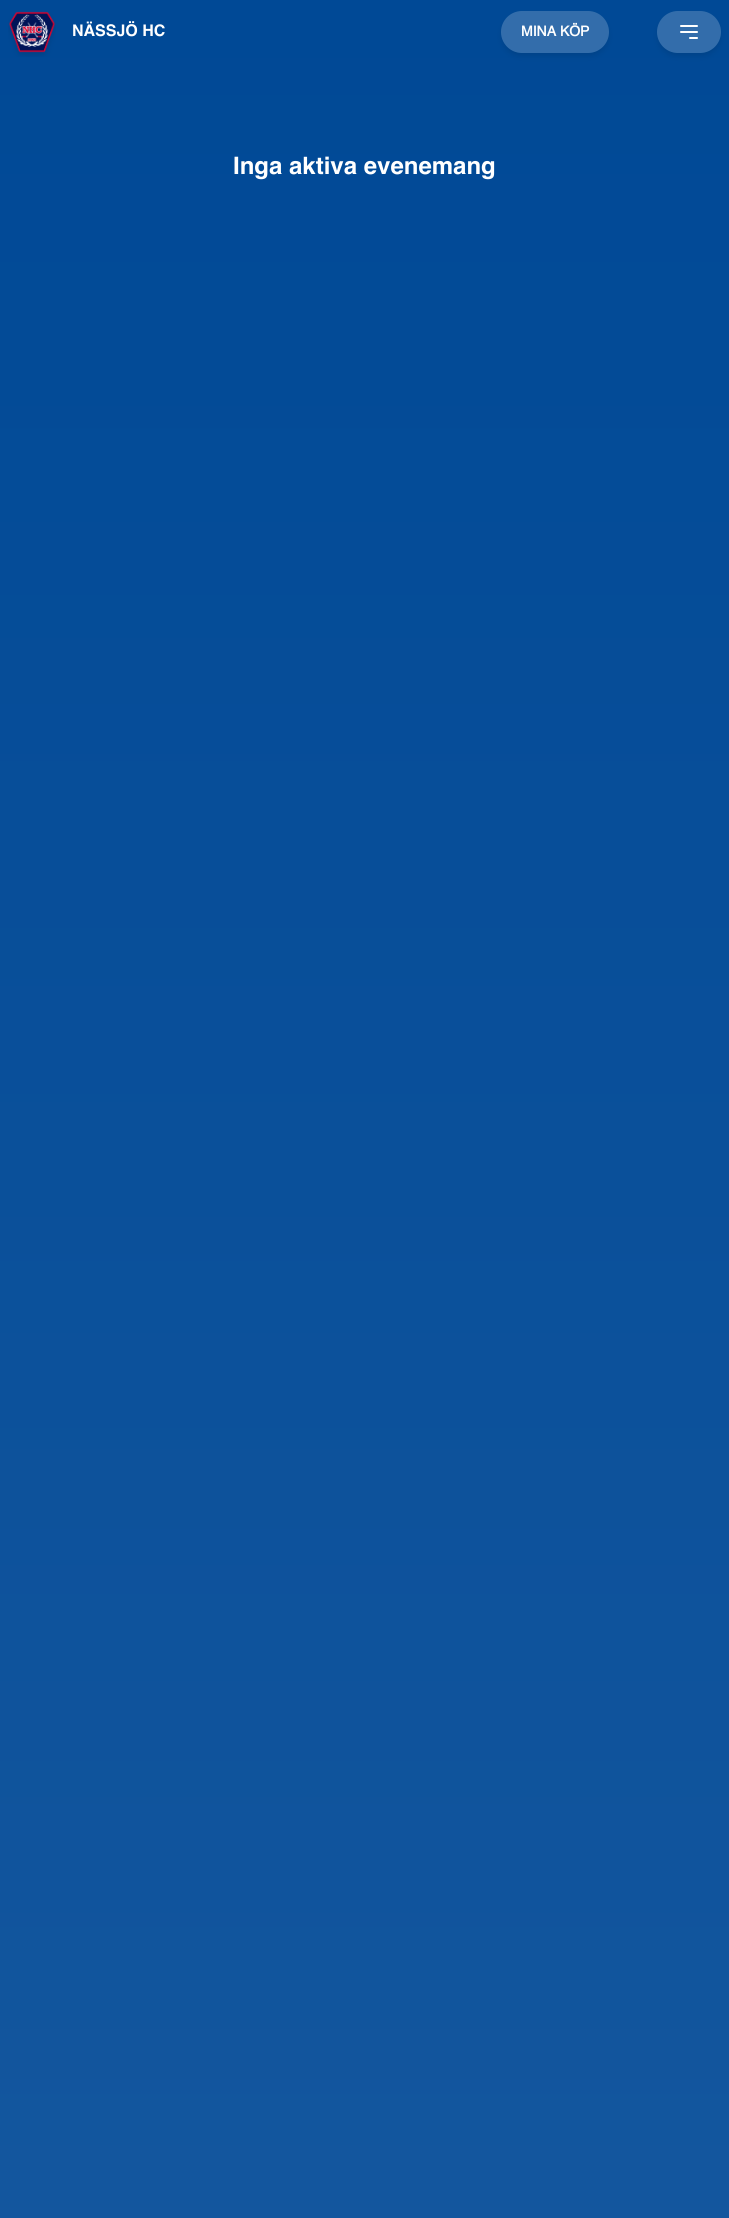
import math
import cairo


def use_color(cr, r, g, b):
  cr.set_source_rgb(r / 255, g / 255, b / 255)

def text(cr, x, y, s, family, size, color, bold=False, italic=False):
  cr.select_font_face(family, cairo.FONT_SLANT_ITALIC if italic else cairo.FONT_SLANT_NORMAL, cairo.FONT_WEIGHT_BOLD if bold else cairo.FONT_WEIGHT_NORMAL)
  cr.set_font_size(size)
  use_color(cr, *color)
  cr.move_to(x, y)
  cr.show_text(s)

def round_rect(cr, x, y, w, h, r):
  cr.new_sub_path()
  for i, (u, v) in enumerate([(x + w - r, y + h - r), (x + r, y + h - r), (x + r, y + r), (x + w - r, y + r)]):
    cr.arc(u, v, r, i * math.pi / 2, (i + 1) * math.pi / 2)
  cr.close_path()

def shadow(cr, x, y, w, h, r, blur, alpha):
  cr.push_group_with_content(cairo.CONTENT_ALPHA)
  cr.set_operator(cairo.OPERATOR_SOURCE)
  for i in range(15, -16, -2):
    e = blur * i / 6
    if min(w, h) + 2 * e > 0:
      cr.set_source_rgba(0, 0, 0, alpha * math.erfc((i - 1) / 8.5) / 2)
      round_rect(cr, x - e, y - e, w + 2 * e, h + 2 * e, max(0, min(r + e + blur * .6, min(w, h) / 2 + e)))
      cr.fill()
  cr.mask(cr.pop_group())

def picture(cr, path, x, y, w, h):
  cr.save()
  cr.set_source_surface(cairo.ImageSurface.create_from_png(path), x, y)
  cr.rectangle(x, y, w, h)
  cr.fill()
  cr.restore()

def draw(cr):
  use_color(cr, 255, 255, 255)
  cr.paint()
  gradient = cairo.LinearGradient(365, 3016, 365, 0)
  gradient.add_color_stop_rgba(0, 0.102, 0.357, 0.631, 1)
  gradient.add_color_stop_rgba(1, 0, 0.286, 0.588, 1)
  cr.set_source(gradient)
  cr.rectangle(0, 0, 729, 2218)
  cr.fill()
  picture(cr, "img_01.png", 8, 11, 48, 46)
  cr.save()
  cr.set_fill_rule(cairo.FILL_RULE_EVEN_ODD)
  cr.new_path()
  cr.move_to(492, 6)
  cr.line_to(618, 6)
  cr.line_to(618, 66)
  cr.line_to(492, 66)
  cr.close_path()
  cr.move_to(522, 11)
  cr.line_to(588, 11)
  cr.curve_to(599.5, 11, 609, 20.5, 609, 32)
  cr.curve_to(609, 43.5, 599.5, 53, 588, 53)
  cr.line_to(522, 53)
  cr.curve_to(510.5, 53, 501, 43.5, 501, 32)
  cr.curve_to(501, 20.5, 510.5, 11, 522, 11)
  cr.close_path()
  cr.clip()
  use_color(cr, 0, 0, 0)
  shadow(cr, 502, 16, 106, 40, 20, 3, 0.1)
  cr.restore()
  cr.set_source_rgba(1, 1, 1, 0.2)
  round_rect(cr, 501, 11, 108, 42, 21)
  cr.fill()
  cr.save()
  cr.set_fill_rule(cairo.FILL_RULE_EVEN_ODD)
  cr.new_path()
  cr.move_to(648, 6)
  cr.line_to(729, 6)
  cr.line_to(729, 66)
  cr.line_to(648, 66)
  cr.close_path()
  cr.move_to(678, 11)
  cr.line_to(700, 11)
  cr.curve_to(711.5, 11, 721, 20.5, 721, 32)
  cr.curve_to(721, 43.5, 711.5, 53, 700, 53)
  cr.line_to(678, 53)
  cr.curve_to(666.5, 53, 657, 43.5, 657, 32)
  cr.curve_to(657, 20.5, 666.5, 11, 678, 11)
  cr.close_path()
  cr.clip()
  use_color(cr, 0, 0, 0)
  shadow(cr, 658, 16, 62, 40, 20, 3, 0.1)
  cr.restore()
  round_rect(cr, 657, 11, 64, 42, 21)
  cr.fill()
  cr.new_path()
  cr.move_to(681, 26)
  cr.line_to(697, 26)
  cr.move_to(681, 32)
  cr.line_to(697, 32)
  cr.move_to(690, 38)
  cr.line_to(697, 38)
  use_color(cr, 255, 255, 255)
  cr.set_line_cap(cairo.LINE_CAP_ROUND)
  cr.set_line_join(cairo.LINE_JOIN_ROUND)
  cr.stroke()
  text(cr, 72, 36, "NÄSSJÖ HC", "Helvetica", 16, (255, 255, 255), bold=True)
  text(cr, 521, 36, "MINA KÖP", "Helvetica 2", 14, (255, 255, 255), bold=True)
  text(cr, 233, 174, "Inga aktiva evenemang", "Helvetica", 24, (255, 255, 255), bold=True)


surface = cairo.ImageSurface(cairo.FORMAT_RGB24, 729, 2218)
cr = cairo.Context(surface)
options = cairo.FontOptions()
options.set_hint_metrics(cairo.HINT_METRICS_OFF)
options.set_hint_style(cairo.HINT_STYLE_NONE)
cr.set_font_options(options)
cr.set_miter_limit(4)
draw(cr)
surface.write_to_png("out.png")
